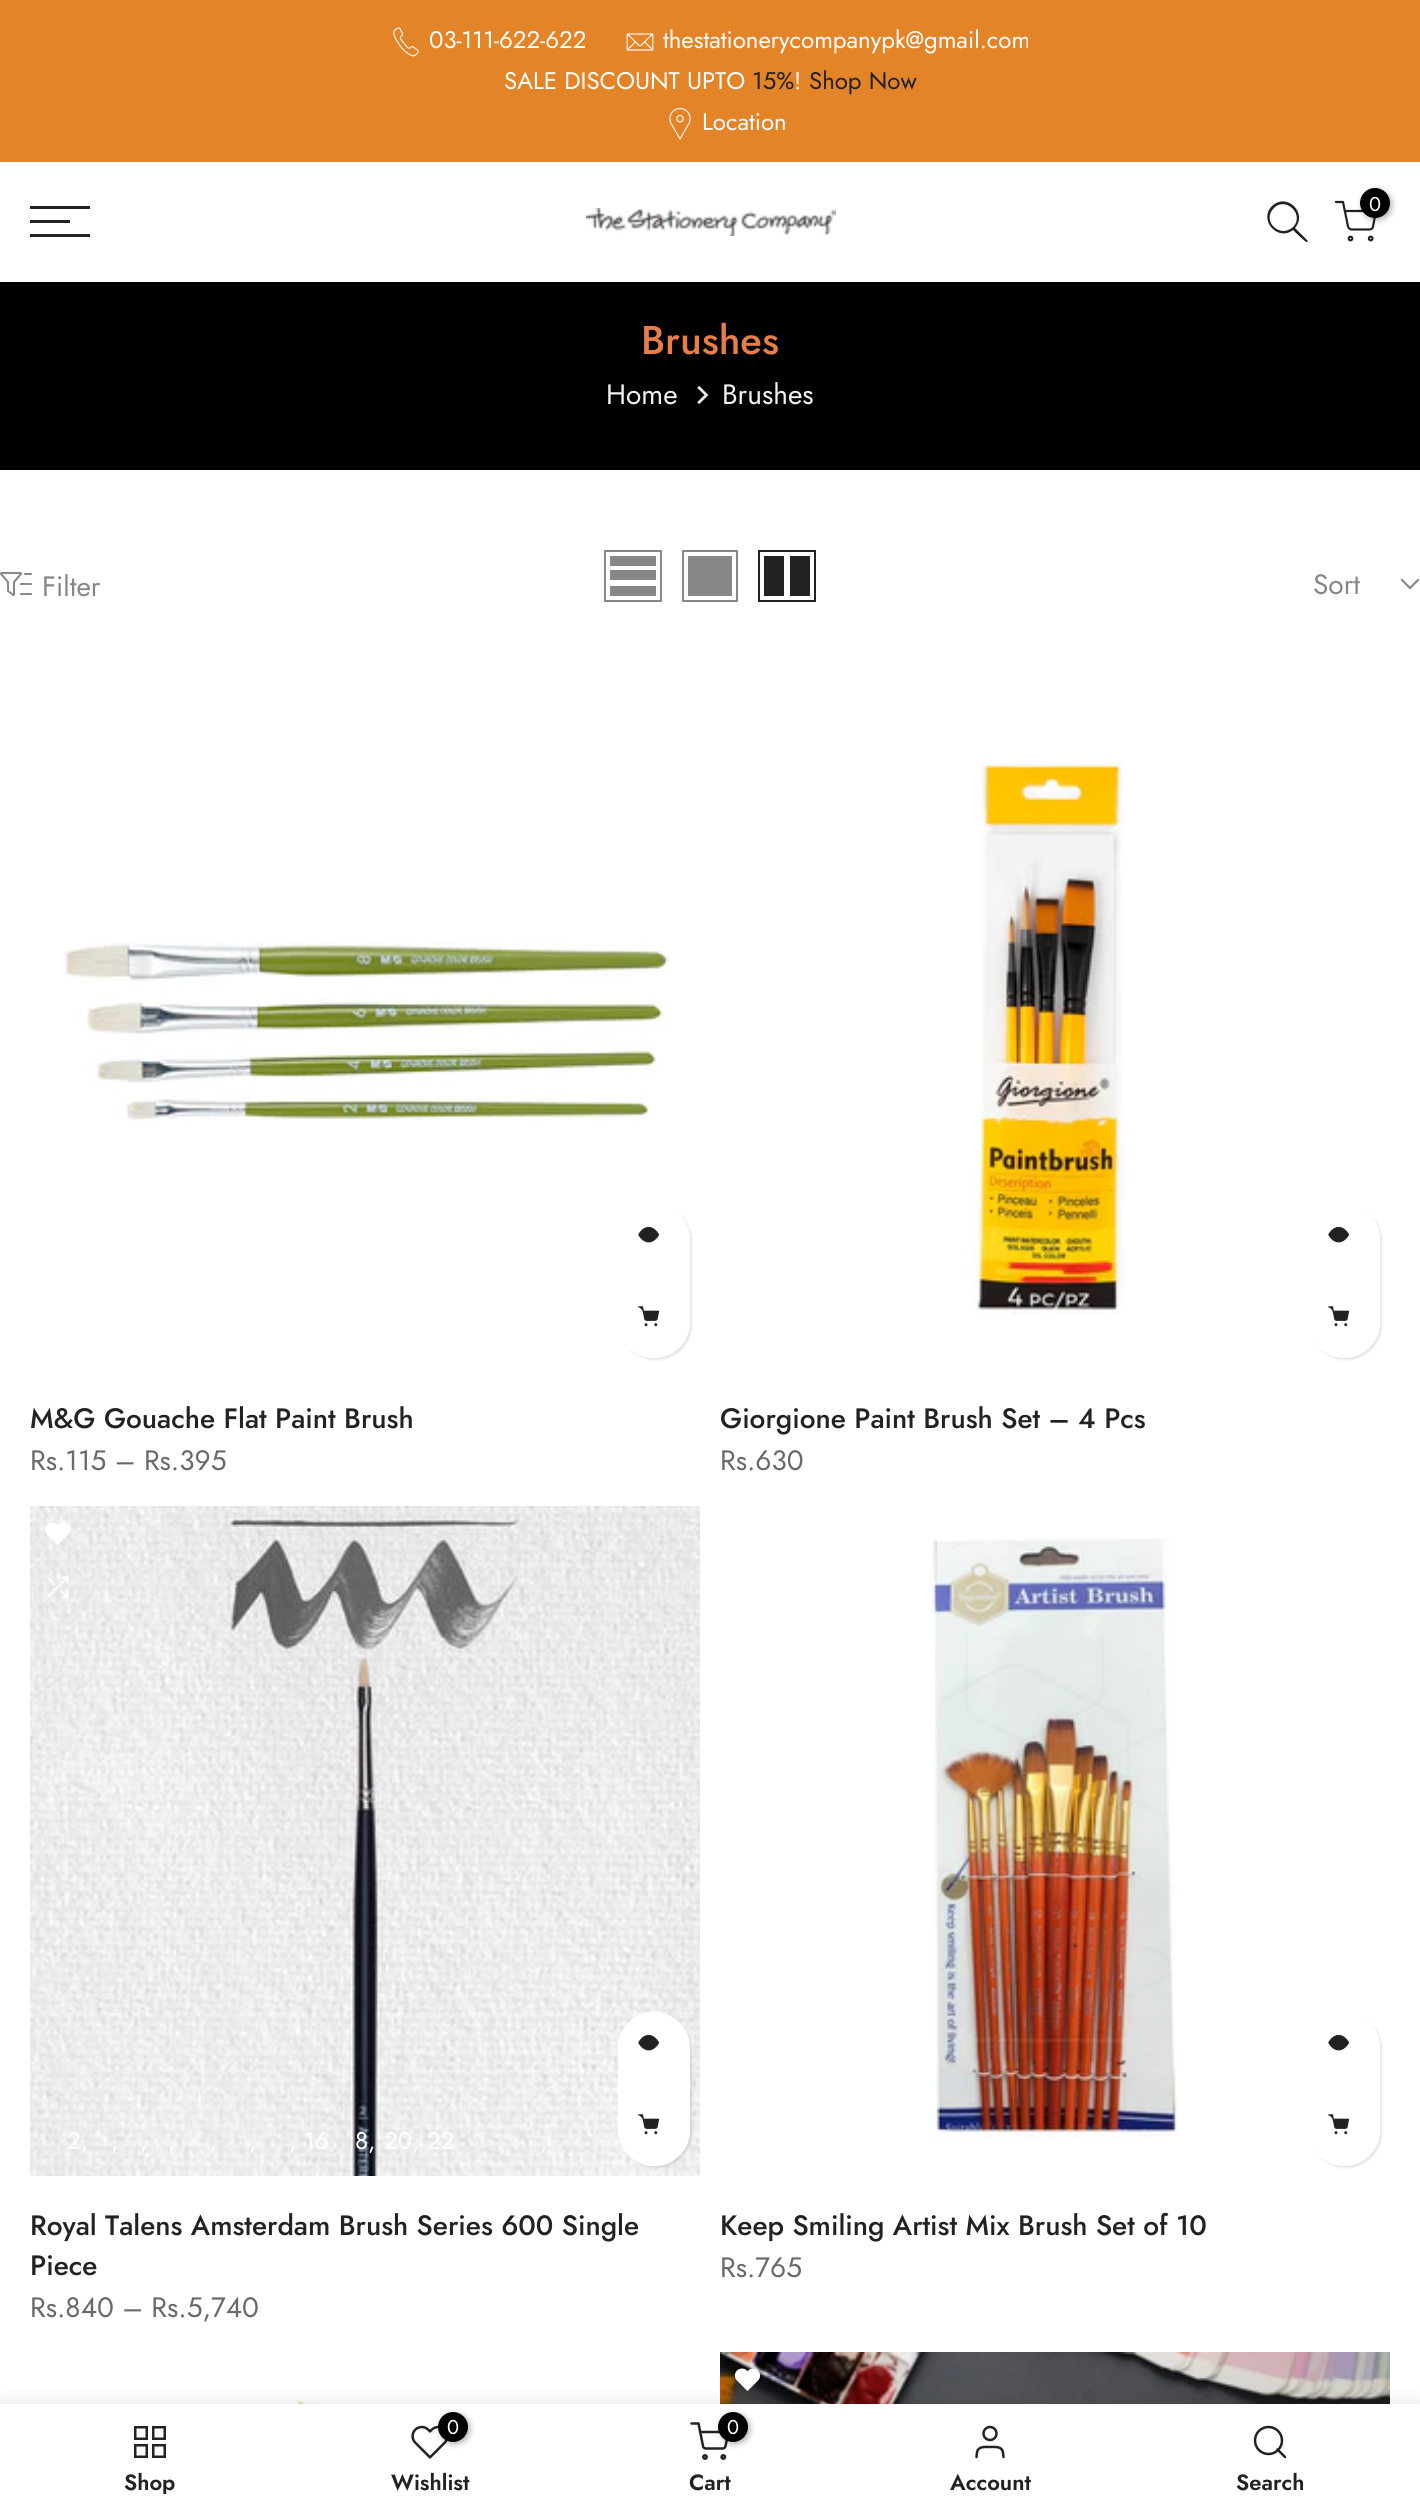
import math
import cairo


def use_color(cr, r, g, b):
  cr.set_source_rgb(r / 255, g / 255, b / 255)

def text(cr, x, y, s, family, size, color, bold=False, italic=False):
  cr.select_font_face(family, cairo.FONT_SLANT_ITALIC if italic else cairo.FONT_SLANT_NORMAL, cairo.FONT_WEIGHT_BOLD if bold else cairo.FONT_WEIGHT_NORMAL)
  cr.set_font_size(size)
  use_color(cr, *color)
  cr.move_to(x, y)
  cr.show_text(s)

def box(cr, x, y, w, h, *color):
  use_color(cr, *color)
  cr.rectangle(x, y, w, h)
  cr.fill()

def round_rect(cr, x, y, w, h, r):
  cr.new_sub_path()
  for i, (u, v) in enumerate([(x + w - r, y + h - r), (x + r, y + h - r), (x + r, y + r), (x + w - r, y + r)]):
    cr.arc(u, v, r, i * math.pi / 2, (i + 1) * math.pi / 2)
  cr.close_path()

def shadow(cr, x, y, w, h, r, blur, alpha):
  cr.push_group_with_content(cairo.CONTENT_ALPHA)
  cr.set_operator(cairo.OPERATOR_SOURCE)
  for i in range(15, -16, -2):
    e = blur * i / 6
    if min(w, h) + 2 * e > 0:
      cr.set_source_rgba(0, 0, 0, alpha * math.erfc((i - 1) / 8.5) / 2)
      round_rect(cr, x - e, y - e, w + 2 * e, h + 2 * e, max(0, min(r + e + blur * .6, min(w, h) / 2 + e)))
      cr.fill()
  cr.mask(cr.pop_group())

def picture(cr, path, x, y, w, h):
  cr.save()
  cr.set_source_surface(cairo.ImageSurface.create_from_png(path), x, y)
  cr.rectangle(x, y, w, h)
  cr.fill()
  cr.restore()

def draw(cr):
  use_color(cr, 255, 255, 255)
  cr.paint()
  box(cr, 0, 0, 1420, 162, 228, 132, 41)
  picture(cr, "img_01.png", 393, 27, 26, 30)
  picture(cr, "img_02.png", 626, 33, 28, 18)
  picture(cr, "img_03.png", 669, 108, 22, 32)
  use_color(cr, 34, 34, 34)
  cr.set_fill_rule(cairo.FILL_RULE_EVEN_ODD)
  cr.new_path()
  cr.move_to(1293, 227)
  cr.curve_to(1280, 239, 1261, 221, 1274, 208)
  cr.curve_to(1286, 196, 1305, 215, 1293, 227)
  cr.close_path()
  cr.move_to(1293, 230)
  cr.curve_to(1278, 242, 1258, 220, 1272, 206)
  cr.curve_to(1287, 192, 1308, 213, 1295, 228)
  cr.line_to(1308, 241)
  cr.line_to(1307, 242)
  cr.curve_to(1306, 243, 1295, 232, 1293, 230)
  cr.close_path()
  cr.fill()
  cr.new_path()
  cr.move_to(1336, 202)
  cr.line_to(1343, 202)
  cr.line_to(1348, 226.5)
  cr.curve_to(1348.5, 228, 1350, 229.5, 1351.5, 229.5)
  cr.line_to(1369.5, 229.5)
  cr.curve_to(1371.5, 229.5, 1373, 228, 1373, 226.5)
  cr.line_to(1376, 211)
  cr.line_to(1345, 211)
  cr.set_line_width(2.2)
  cr.set_line_cap(cairo.LINE_CAP_ROUND)
  cr.set_line_join(cairo.LINE_JOIN_ROUND)
  cr.stroke()
  use_color(cr, 0, 0, 0)
  shadow(cr, 1362, 190, 30, 30, 15, 3, 0.3)
  use_color(cr, 0, 0, 0)
  cr.arc(1375, 203, 15, 0, 2 * math.pi)
  cr.fill()
  cr.arc(1350.5, 238.5, 1.8, 0, 2 * math.pi)
  use_color(cr, 34, 34, 34)
  cr.set_line_cap(cairo.LINE_CAP_BUTT)
  cr.set_line_join(cairo.LINE_JOIN_MITER)
  cr.stroke()
  cr.arc(1370.7, 238.5, 1.8, 0, 2 * math.pi)
  cr.stroke()
  box(cr, 30, 206, 60, 3, 34, 34, 34)
  box(cr, 30, 220, 40, 3, 34, 34, 34)
  box(cr, 30, 234, 60, 3, 34, 34, 34)
  picture(cr, "img_04.png", 586, 208, 250, 28)
  box(cr, 0, 282, 1420, 188, 0, 0, 0)
  picture(cr, "img_05.png", 697, 386, 12, 18)
  picture(cr, "img_06.png", 0, 572, 32, 24)
  cr.rectangle(605, 551, 56, 50)
  use_color(cr, 135, 135, 135)
  cr.set_line_width(2)
  cr.stroke()
  box(cr, 610, 586, 46, 10, 135, 135, 135)
  box(cr, 610, 570, 46, 10, 135, 135, 135)
  box(cr, 610, 556, 46, 10, 135, 135, 135)
  cr.rectangle(683, 551, 54, 50)
  cr.stroke()
  box(cr, 688, 556, 44, 40, 135, 135, 135)
  cr.rectangle(759, 551, 56, 50)
  use_color(cr, 34, 34, 34)
  cr.stroke()
  box(cr, 790, 556, 20, 40, 34, 34, 34)
  box(cr, 764, 556, 20, 40, 34, 34, 34)
  cr.new_path()
  cr.move_to(1418, 580)
  cr.line_to(1410, 588)
  cr.line_to(1402, 580)
  use_color(cr, 135, 135, 135)
  cr.set_line_width(2.1)
  cr.set_line_cap(cairo.LINE_CAP_SQUARE)
  cr.stroke()
  picture(cr, "img_07.png", 64, 942, 606, 179)
  use_color(cr, 0, 0, 0)
  shadow(cr, 620, 1206, 72, 154, 36, 1, 0.1)
  use_color(cr, 255, 255, 255)
  round_rect(cr, 618, 1204, 72, 154, 36)
  cr.fill()
  cr.arc(654, 1240, 36, 0, 2 * math.pi)
  cr.fill()
  picture(cr, "img_08.png", 638, 1226, 21, 17)
  cr.arc(654, 1322, 36, 0, 2 * math.pi)
  cr.fill()
  picture(cr, "img_09.png", 638, 1306, 22, 21)
  picture(cr, "img_10.png", 969, 762, 158, 553)
  use_color(cr, 0, 0, 0)
  shadow(cr, 1310, 1206, 72, 154, 36, 1, 0.1)
  use_color(cr, 255, 255, 255)
  round_rect(cr, 1308, 1204, 72, 154, 36)
  cr.fill()
  cr.arc(1344, 1240, 36, 0, 2 * math.pi)
  cr.fill()
  picture(cr, "img_08.png", 1328, 1226, 21, 17)
  cr.arc(1344, 1322, 36, 0, 2 * math.pi)
  cr.fill()
  picture(cr, "img_09.png", 1328, 1306, 22, 21)
  picture(cr, "img_11.png", 30, 1506, 670, 670)
  picture(cr, "img_12.png", 45, 1522, 25, 23)
  picture(cr, "img_13.png", 47, 1576, 22, 23)
  use_color(cr, 0, 0, 0)
  shadow(cr, 620, 2014, 72, 154, 36, 1, 0.1)
  use_color(cr, 255, 255, 255)
  round_rect(cr, 618, 2012, 72, 154, 36)
  cr.fill()
  cr.arc(654, 2048, 36, 0, 2 * math.pi)
  cr.fill()
  picture(cr, "img_08.png", 638, 2034, 21, 17)
  cr.arc(654, 2130, 36, 0, 2 * math.pi)
  cr.fill()
  picture(cr, "img_09.png", 638, 2114, 22, 21)
  picture(cr, "img_14.png", 931, 1538, 248, 602)
  use_color(cr, 0, 0, 0)
  shadow(cr, 1310, 2014, 72, 154, 36, 1, 0.1)
  use_color(cr, 255, 255, 255)
  round_rect(cr, 1308, 2012, 72, 154, 36)
  cr.fill()
  cr.arc(1344, 2048, 36, 0, 2 * math.pi)
  cr.fill()
  picture(cr, "img_08.png", 1328, 2034, 21, 17)
  cr.arc(1344, 2130, 36, 0, 2 * math.pi)
  cr.fill()
  picture(cr, "img_09.png", 1328, 2114, 22, 21)
  picture(cr, "img_15.png", 94, 2399, 334, 5)
  picture(cr, "img_16.png", 720, 2352, 670, 52)
  picture(cr, "img_17.png", 734, 2368, 27, 23)
  use_color(cr, 0, 0, 0)
  shadow(cr, 0, 2404, 1420, 110, 0, 9, 0.12)
  box(cr, 0, 2404, 1420, 110, 255, 255, 255)
  cr.rectangle(135.25, 2427.25, 11.5, 11.5)
  use_color(cr, 34, 34, 34)
  cr.set_line_width(2.5)
  cr.set_line_cap(cairo.LINE_CAP_BUTT)
  cr.stroke()
  cr.rectangle(153.25, 2427.25, 11.5, 11.5)
  cr.stroke()
  cr.rectangle(135.25, 2445.25, 11.5, 11.5)
  cr.stroke()
  cr.rectangle(153.25, 2445.25, 11.5, 11.5)
  cr.stroke()
  picture(cr, "img_18.png", 411, 2425, 37, 34)
  use_color(cr, 0, 0, 0)
  shadow(cr, 440, 2414, 30, 30, 15, 3, 0.3)
  use_color(cr, 0, 0, 0)
  cr.arc(453, 2427, 15, 0, 2 * math.pi)
  cr.fill()
  cr.new_path()
  cr.move_to(691.5, 2423.5)
  cr.line_to(698.5, 2423.5)
  cr.line_to(703, 2446)
  cr.curve_to(703, 2447.5, 704.5, 2448.5, 706, 2448.5)
  cr.line_to(722.5, 2448.5)
  cr.curve_to(724, 2448.5, 725.5, 2447.5, 725.5, 2446)
  cr.line_to(728.5, 2432)
  cr.line_to(700, 2432)
  use_color(cr, 34, 34, 34)
  cr.set_line_cap(cairo.LINE_CAP_ROUND)
  cr.set_line_join(cairo.LINE_JOIN_ROUND)
  cr.stroke()
  use_color(cr, 0, 0, 0)
  shadow(cr, 720, 2414, 30, 30, 15, 3, 0.3)
  use_color(cr, 0, 0, 0)
  cr.arc(733, 2427, 15, 0, 2 * math.pi)
  cr.fill()
  cr.arc(705, 2457, 1.7, 0, 2 * math.pi)
  use_color(cr, 34, 34, 34)
  cr.set_line_cap(cairo.LINE_CAP_BUTT)
  cr.set_line_join(cairo.LINE_JOIN_MITER)
  cr.stroke()
  cr.arc(723.3, 2457, 1.7, 0, 2 * math.pi)
  cr.stroke()
  cr.arc(990, 2433.5, 6.5, 0, 2 * math.pi)
  cr.stroke()
  cr.new_path()
  cr.move_to(1003.5, 2457)
  cr.line_to(1003, 2452.5)
  cr.curve_to(1002, 2446, 995, 2447, 990, 2447)
  cr.curve_to(985, 2447, 978, 2446, 977, 2452.5)
  cr.line_to(976.5, 2457)
  cr.set_line_cap(cairo.LINE_CAP_ROUND)
  cr.set_line_join(cairo.LINE_JOIN_ROUND)
  cr.stroke()
  cr.arc(1268.5, 2440.5, 13.5, 0, 2 * math.pi)
  cr.set_line_cap(cairo.LINE_CAP_BUTT)
  cr.set_line_join(cairo.LINE_JOIN_MITER)
  cr.stroke()
  cr.new_path()
  cr.move_to(1285, 2457)
  cr.line_to(1277.5, 2449.5)
  cr.set_line_cap(cairo.LINE_CAP_ROUND)
  cr.set_line_join(cairo.LINE_JOIN_ROUND)
  cr.stroke()
  text(cr, 429, 48, "03-111-622-622", "Jost", 24, (255, 255, 255))
  text(cr, 663, 48, "thestationerycompanypk@gmail.com", "Jost", 24, (255, 255, 255))
  text(cr, 504, 89, "SALE DISCOUNT UPTO", "Jost", 24, (255, 255, 255))
  text(cr, 752, 89, "15%", "Jost", 24, (34, 34, 34))
  text(cr, 794, 89, "!", "Jost", 24, (255, 255, 255))
  text(cr, 809, 89, "Shop Now", "Jost", 24, (34, 34, 34))
  text(cr, 702, 130, "Location", "Jost", 24, (255, 255, 255))
  text(cr, 1369, 211, "0", "Jost", 20, (255, 255, 255))
  text(cr, 641, 354, "Brushes", "Jost Medium", 40, (230, 126, 70))
  text(cr, 606, 404, "Home", "Jost", 28, (242, 242, 242))
  text(cr, 722, 404, "Brushes", "Jost", 28, (242, 242, 242))
  text(cr, 42, 596, "Filter", "Jost", 28, (135, 135, 135))
  text(cr, 1313, 594, "Sort", "Jost", 28, (135, 135, 135))
  text(cr, 30, 1428, "M&G Gouache Flat Paint Brush", "Jost Medium", 28, (34, 34, 34))
  text(cr, 30, 1470, "Rs.115 – Rs.395", "Jost", 28, (105, 105, 105))
  text(cr, 720, 1428, "Giorgione Paint Brush Set – 4 Pcs", "Jost Medium", 28, (34, 34, 34))
  text(cr, 720, 1470, "Rs.630", "Jost", 28, (105, 105, 105))
  text(cr, 67, 2149, "2,", "Jost", 24, (255, 255, 255))
  text(cr, 111, 2149, ",", "Jost", 24, (255, 255, 255))
  text(cr, 140, 2149, ",", "Jost", 24, (255, 255, 255))
  text(cr, 168, 2149, ",", "Jost", 24, (255, 255, 255))
  text(cr, 209, 2149, ",", "Jost", 24, (255, 255, 255))
  text(cr, 249, 2149, ",", "Jost", 24, (255, 255, 255))
  text(cr, 289, 2149, ",", "Jost", 24, (255, 255, 255))
  text(cr, 304, 2149, "16", "Jost", 24, (255, 255, 255))
  text(cr, 355, 2149, "8,", "Jost", 24, (255, 255, 255))
  text(cr, 384, 2149, "20,", "Jost", 24, (255, 255, 255))
  text(cr, 427, 2149, "22", "Jost", 24, (255, 255, 255))
  text(cr, 540, 2149, ",", "Jost", 24, (255, 255, 255))
  text(cr, 30, 2235, "Royal Talens Amsterdam Brush Series 600 Single", "Jost Medium", 28, (34, 34, 34))
  text(cr, 30, 2275, "Piece", "Jost Medium", 28, (34, 34, 34))
  text(cr, 30, 2317, "Rs.840 – Rs.5,740", "Jost", 28, (105, 105, 105))
  text(cr, 720, 2235, "Keep Smiling Artist Mix Brush Set of 10", "Jost Medium", 28, (34, 34, 34))
  text(cr, 720, 2277, "Rs.765", "Jost", 28, (105, 105, 105))
  cr.save()
  cr.set_fill_rule(cairo.FILL_RULE_WINDING)
  cr.rectangle(30, 2472, 240, 22)
  cr.clip()
  text(cr, 124, 2490, "Shop", "Jost SemiBold", 22, (34, 34, 34))
  cr.restore()
  text(cr, 447, 2434, "0", "Jost", 20, (255, 255, 255))
  text(cr, 391, 2490, "Wishlist", "Jost SemiBold", 22, (34, 34, 34))
  text(cr, 727, 2434, "0", "Jost", 20, (255, 255, 255))
  text(cr, 689, 2490, "Cart", "Jost SemiBold", 22, (34, 34, 34))
  text(cr, 950, 2490, "Account", "Jost SemiBold", 22, (34, 34, 34))
  text(cr, 1236, 2490, "Search", "Jost SemiBold", 22, (34, 34, 34))


surface = cairo.ImageSurface(cairo.FORMAT_RGB24, 1420, 2514)
cr = cairo.Context(surface)
options = cairo.FontOptions()
options.set_hint_metrics(cairo.HINT_METRICS_OFF)
options.set_hint_style(cairo.HINT_STYLE_NONE)
cr.set_font_options(options)
cr.set_miter_limit(4)
draw(cr)
surface.write_to_png("out.png")
